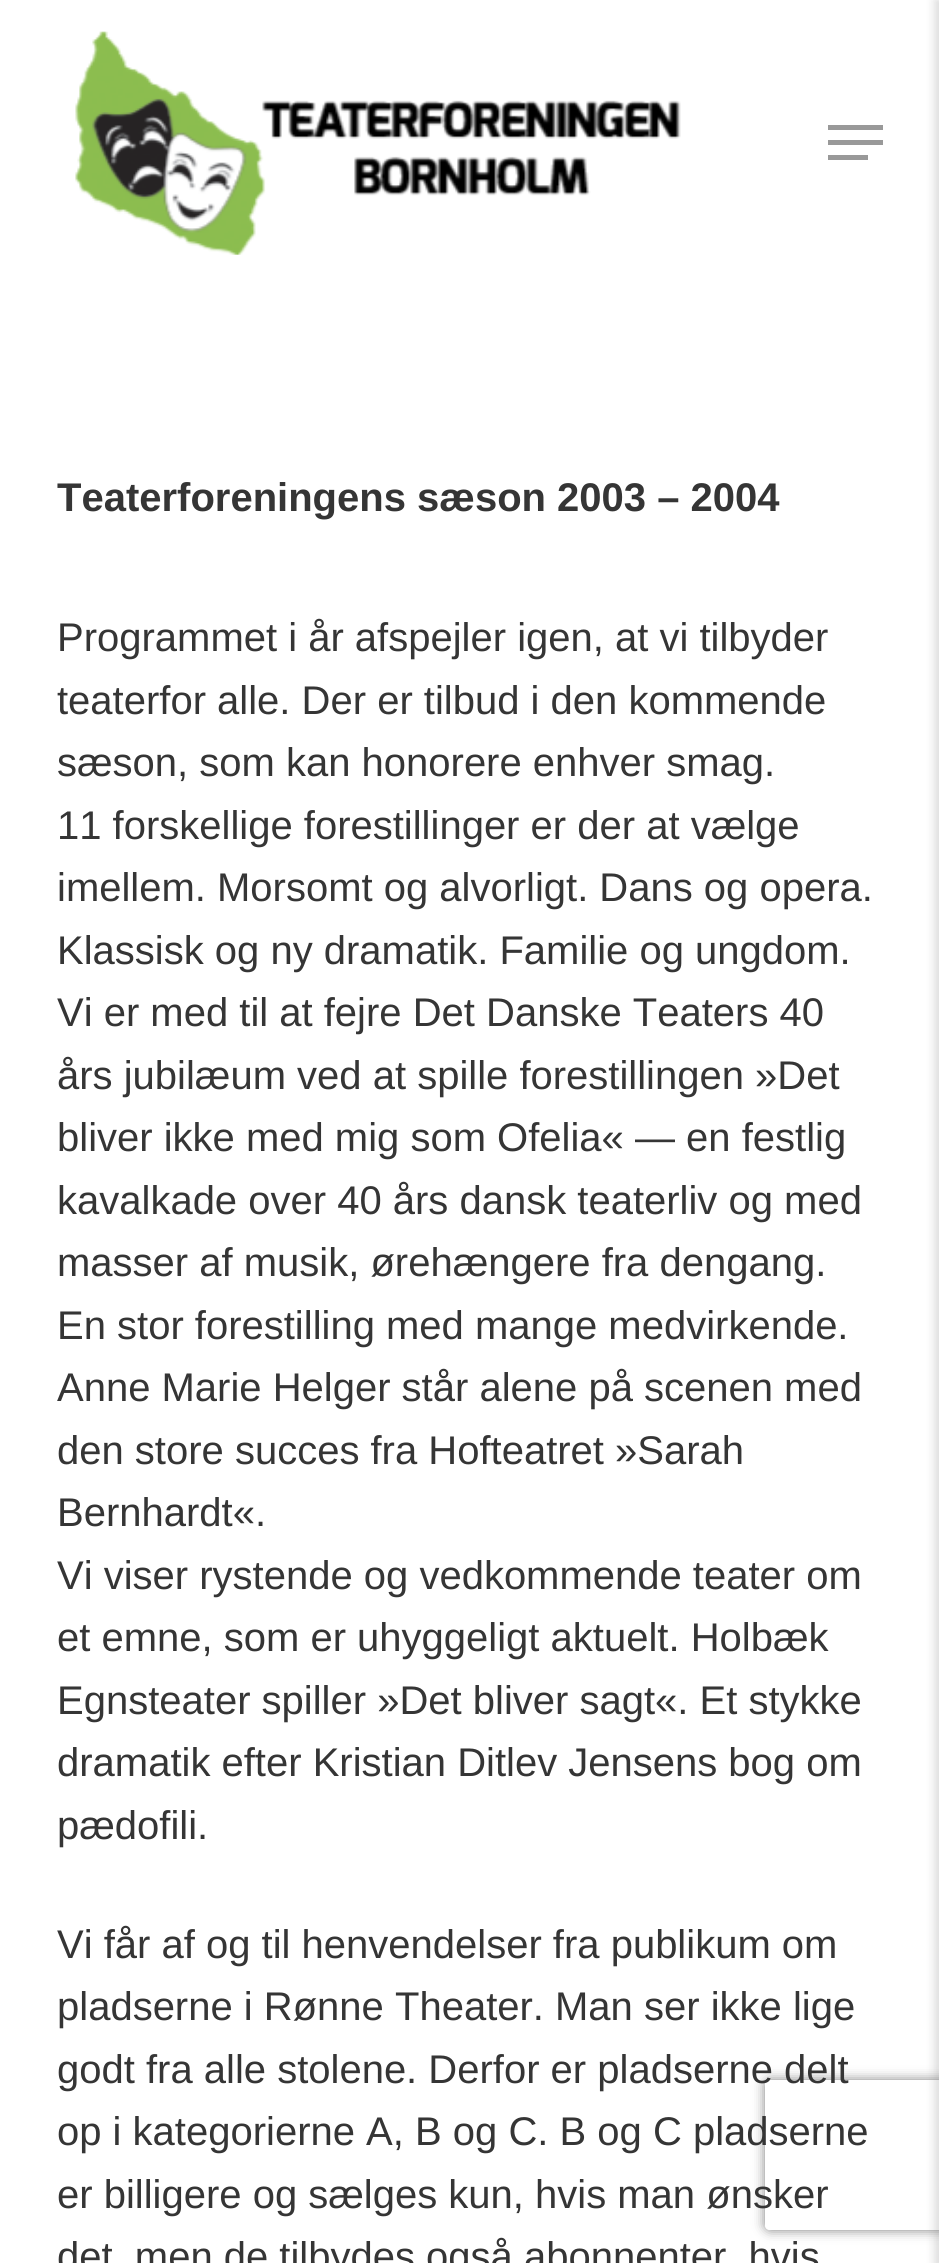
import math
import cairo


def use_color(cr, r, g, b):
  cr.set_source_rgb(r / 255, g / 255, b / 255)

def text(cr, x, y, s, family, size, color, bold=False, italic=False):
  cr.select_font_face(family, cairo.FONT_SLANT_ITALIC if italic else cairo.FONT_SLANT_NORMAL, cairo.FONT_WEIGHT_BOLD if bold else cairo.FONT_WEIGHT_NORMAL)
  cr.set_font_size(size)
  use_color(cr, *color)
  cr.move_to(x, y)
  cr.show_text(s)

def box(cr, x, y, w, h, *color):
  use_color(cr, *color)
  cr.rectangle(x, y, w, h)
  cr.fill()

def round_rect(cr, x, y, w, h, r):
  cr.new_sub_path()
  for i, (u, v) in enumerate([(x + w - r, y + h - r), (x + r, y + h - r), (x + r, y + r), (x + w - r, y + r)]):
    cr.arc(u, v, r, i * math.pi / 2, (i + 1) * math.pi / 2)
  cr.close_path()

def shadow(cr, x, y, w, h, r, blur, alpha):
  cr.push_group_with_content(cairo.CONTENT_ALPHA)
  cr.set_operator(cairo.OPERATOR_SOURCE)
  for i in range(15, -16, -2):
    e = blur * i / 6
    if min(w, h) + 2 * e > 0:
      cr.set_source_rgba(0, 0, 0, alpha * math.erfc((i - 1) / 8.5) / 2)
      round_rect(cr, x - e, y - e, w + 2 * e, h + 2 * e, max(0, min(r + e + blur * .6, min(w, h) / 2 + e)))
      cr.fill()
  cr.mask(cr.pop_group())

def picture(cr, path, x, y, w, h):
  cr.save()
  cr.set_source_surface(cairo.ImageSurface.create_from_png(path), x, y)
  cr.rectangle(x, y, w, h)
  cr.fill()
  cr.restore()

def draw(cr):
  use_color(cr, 255, 255, 255)
  cr.paint()
  picture(cr, "img_01.png", 75, 31, 606, 224)
  box(cr, 828, 125, 55, 5, 153, 153, 153)
  box(cr, 828, 155, 40, 5, 153, 153, 153)
  box(cr, 828, 140, 55, 5, 153, 153, 153)
  use_color(cr, 0, 0, 0)
  shadow(cr, 935, 0, 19, 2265, 0, 5, 0.15)
  cr.save()
  cr.set_fill_rule(cairo.FILL_RULE_EVEN_ODD)
  cr.new_path()
  cr.move_to(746, 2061)
  cr.line_to(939, 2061)
  cr.line_to(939, 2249)
  cr.line_to(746, 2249)
  cr.close_path()
  cr.move_to(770, 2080)
  cr.line_to(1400, 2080)
  cr.curve_to(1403, 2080, 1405, 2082, 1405, 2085)
  cr.line_to(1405, 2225)
  cr.curve_to(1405, 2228, 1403, 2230, 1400, 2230)
  cr.line_to(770, 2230)
  cr.curve_to(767, 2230, 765, 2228, 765, 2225)
  cr.line_to(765, 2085)
  cr.curve_to(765, 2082, 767, 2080, 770, 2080)
  cr.close_path()
  cr.clip()
  use_color(cr, 128, 128, 128)
  shadow(cr, 765, 2080, 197, 150, 5, 6, 1)
  cr.restore()
  text(cr, 57, 511, "Teaterforeningens sæson 2003 – 2004", "Liberation Sans", 40, (53, 53, 53), bold=True)
  text(cr, 57, 651, "Programmet i år afspejler igen, at vi tilbyder", "Liberation Sans", 40, (53, 53, 53))
  text(cr, 57, 714, "teaterfor alle. Der er tilbud i den kommende", "Liberation Sans", 40, (53, 53, 53))
  text(cr, 57, 776, "sæson, som kan honorere enhver smag.", "Liberation Sans", 40, (53, 53, 53))
  text(cr, 57, 839, "11 forskellige forestillinger er der at vælge", "Liberation Sans", 40, (53, 53, 53))
  text(cr, 57, 901, "imellem. Morsomt og alvorligt. Dans og opera.", "Liberation Sans", 40, (53, 53, 53))
  text(cr, 57, 964, "Klassisk og ny dramatik. Familie og ungdom.", "Liberation Sans", 40, (53, 53, 53))
  text(cr, 57, 1026, "Vi er med til at fejre Det Danske Teaters 40", "Liberation Sans", 40, (53, 53, 53))
  text(cr, 57, 1089, "års jubilæum ved at spille forestillingen »Det", "Liberation Sans", 40, (53, 53, 53))
  text(cr, 57, 1151, "bliver ikke med mig som Ofelia« — en festlig", "Liberation Sans", 40, (53, 53, 53))
  text(cr, 57, 1214, "kavalkade over 40 års dansk teaterliv og med", "Liberation Sans", 40, (53, 53, 53))
  text(cr, 57, 1276, "masser af musik, ørehængere fra dengang.", "Liberation Sans", 40, (53, 53, 53))
  text(cr, 57, 1339, "En stor forestilling med mange medvirkende.", "Liberation Sans", 40, (53, 53, 53))
  text(cr, 57, 1401, "Anne Marie Helger står alene på scenen med", "Liberation Sans", 40, (53, 53, 53))
  text(cr, 57, 1464, "den store succes fra Hofteatret »Sarah", "Liberation Sans", 40, (53, 53, 53))
  text(cr, 57, 1526, "Bernhardt«.", "Liberation Sans", 40, (53, 53, 53))
  text(cr, 57, 1589, "Vi viser rystende og vedkommende teater om", "Liberation Sans", 40, (53, 53, 53))
  text(cr, 57, 1651, "et emne, som er uhyggeligt aktuelt. Holbæk", "Liberation Sans", 40, (53, 53, 53))
  text(cr, 57, 1714, "Egnsteater spiller »Det bliver sagt«. Et stykke", "Liberation Sans", 40, (53, 53, 53))
  text(cr, 57, 1776, "dramatik efter Kristian Ditlev Jensens bog om", "Liberation Sans", 40, (53, 53, 53))
  text(cr, 57, 1839, "pædofili.", "Liberation Sans", 40, (53, 53, 53))
  text(cr, 57, 1958, "Vi får af og til henvendelser fra publikum om", "Liberation Sans", 40, (53, 53, 53))
  text(cr, 57, 2020, "pladserne i Rønne Theater. Man ser ikke lige", "Liberation Sans", 40, (53, 53, 53))
  text(cr, 57, 2083, "godt fra alle stolene. Derfor er pladserne delt", "Liberation Sans", 40, (53, 53, 53))
  text(cr, 57, 2145, "op i kategorierne A, B og C. B og C pladserne", "Liberation Sans", 40, (53, 53, 53))
  text(cr, 57, 2208, "er billigere og sælges kun, hvis man ønsker", "Liberation Sans", 40, (53, 53, 53))
  text(cr, 57, 2270, "det, men de tilbydes også abonnenter, hvis", "Liberation Sans", 40, (53, 53, 53))


surface = cairo.ImageSurface(cairo.FORMAT_RGB24, 939, 2263)
cr = cairo.Context(surface)
options = cairo.FontOptions()
options.set_hint_metrics(cairo.HINT_METRICS_OFF)
options.set_hint_style(cairo.HINT_STYLE_NONE)
cr.set_font_options(options)
cr.set_miter_limit(4)
draw(cr)
surface.write_to_png("out.png")
